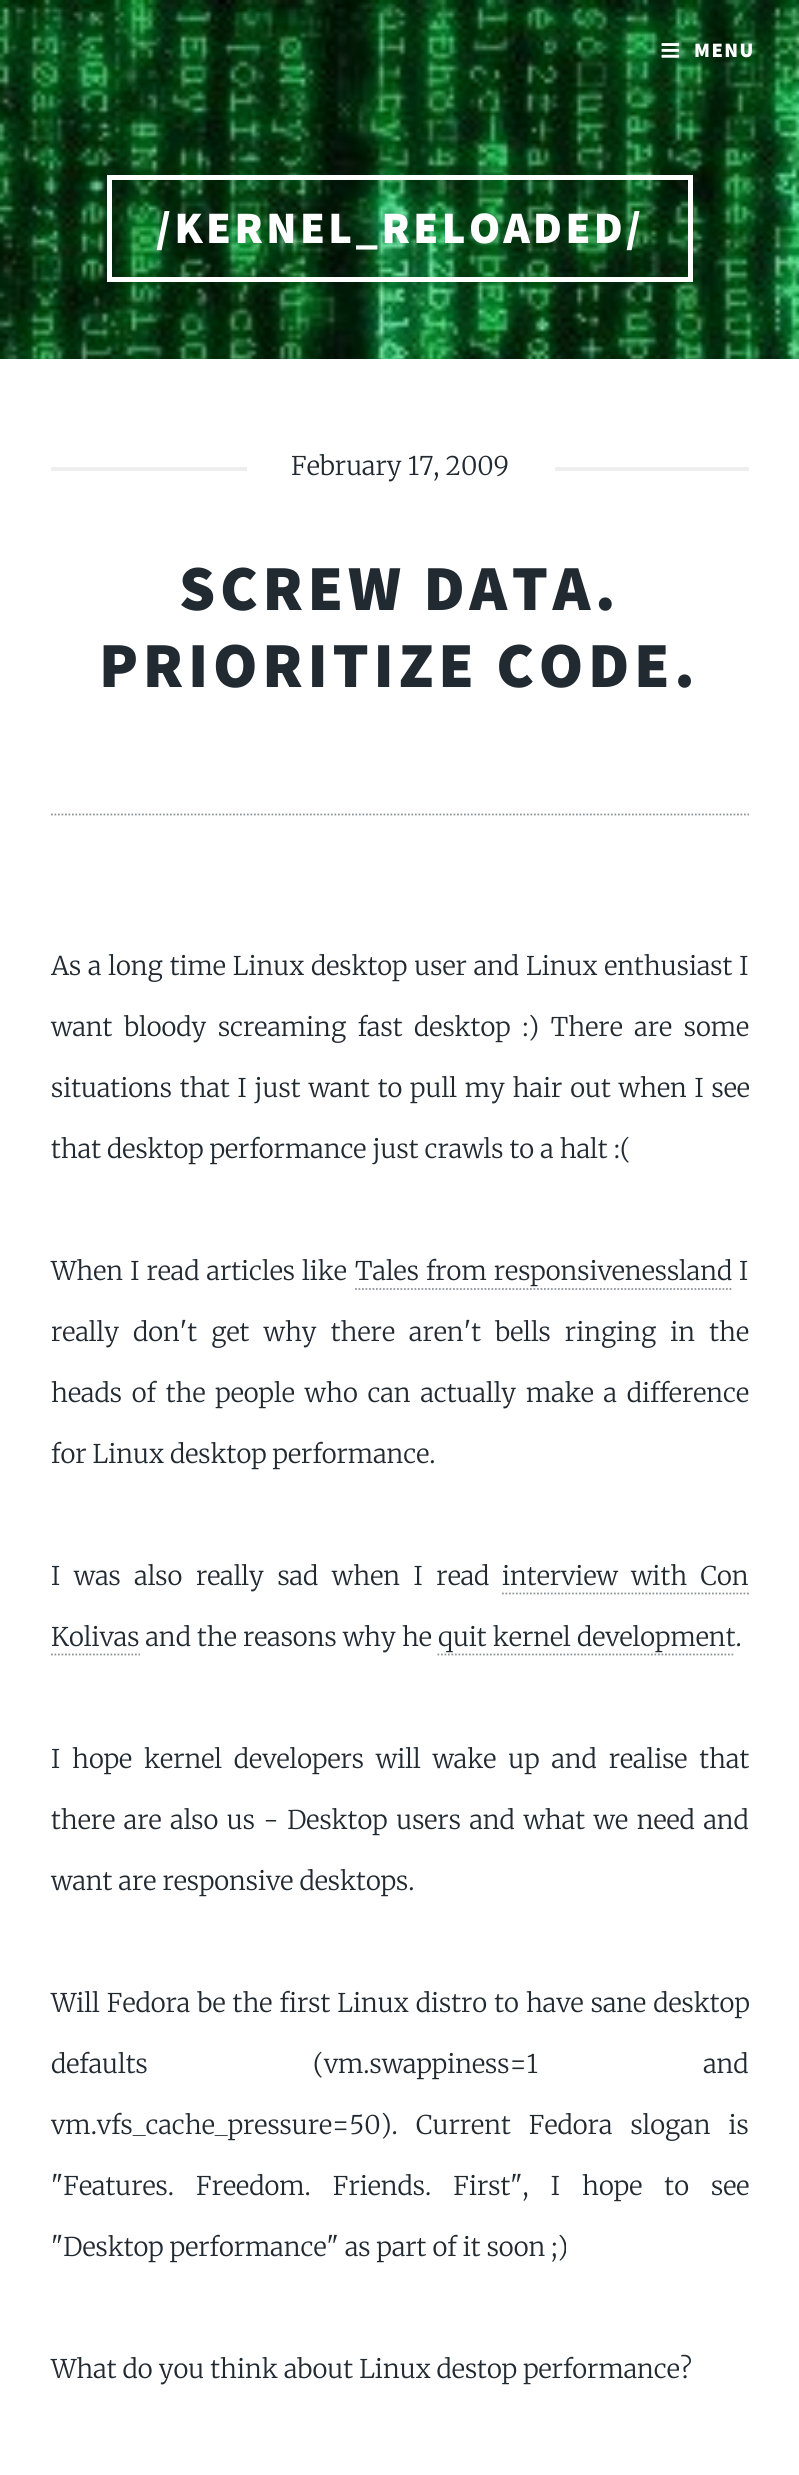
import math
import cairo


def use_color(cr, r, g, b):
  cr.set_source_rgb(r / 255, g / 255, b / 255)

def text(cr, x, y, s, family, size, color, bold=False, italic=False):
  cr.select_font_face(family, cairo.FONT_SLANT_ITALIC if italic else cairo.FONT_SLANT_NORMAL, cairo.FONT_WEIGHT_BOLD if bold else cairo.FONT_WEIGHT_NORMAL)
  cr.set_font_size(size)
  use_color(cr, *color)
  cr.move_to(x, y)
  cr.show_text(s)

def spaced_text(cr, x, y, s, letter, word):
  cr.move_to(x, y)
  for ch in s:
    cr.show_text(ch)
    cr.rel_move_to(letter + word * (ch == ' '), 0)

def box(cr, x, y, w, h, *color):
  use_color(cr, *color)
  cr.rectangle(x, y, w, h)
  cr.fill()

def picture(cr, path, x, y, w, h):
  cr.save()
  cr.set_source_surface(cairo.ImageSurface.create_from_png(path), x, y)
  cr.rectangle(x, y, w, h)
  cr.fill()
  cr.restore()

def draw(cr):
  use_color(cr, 255, 255, 255)
  cr.paint()
  picture(cr, "img_01.png", 0, 0, 799, 359)
  picture(cr, "img_02.png", 661, 43, 19, 15)
  cr.rectangle(109.5, 177.5, 581, 102)
  use_color(cr, 255, 255, 255)
  cr.set_line_width(5)
  cr.stroke()
  box(cr, 51, 467, 196, 4, 238, 238, 238)
  box(cr, 555, 467, 194, 4, 238, 238, 238)
  cr.new_path()
  cr.move_to(51, 814.5)
  cr.line_to(749, 814.5)
  use_color(cr, 144, 148, 152)
  cr.set_line_width(1.8)
  cr.set_dash([1.75, 1.75])
  cr.stroke()
  cr.new_path()
  cr.move_to(355, 1289)
  cr.line_to(731.5, 1289)
  cr.stroke()
  cr.new_path()
  cr.move_to(502, 1593.5)
  cr.line_to(749, 1593.5)
  cr.stroke()
  cr.new_path()
  cr.move_to(51, 1654.5)
  cr.line_to(140, 1654.5)
  cr.stroke()
  cr.new_path()
  cr.move_to(437.5, 1654.5)
  cr.line_to(735, 1654.5)
  cr.stroke()
  cr.select_font_face("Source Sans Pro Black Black")
  cr.set_font_size(20.5)
  use_color(cr, 255, 255, 255)
  spaced_text(cr, 694, 57, "MENU", 1.5, 0)
  cr.set_font_size(45)
  spaced_text(cr, 156, 243, "/KERNEL_RELOADED/", 3.4, 0)
  text(cr, 291, 475, "February 17, 2009", "Merriweather Light", 25.7, (33, 41, 49))
  cr.select_font_face("Source Sans Pro Black Black")
  cr.set_font_size(64.25)
  spaced_text(cr, 179, 610, "SCREW DATA.", 4.75, 0)
  spaced_text(cr, 99, 687, "PRIORITIZE CODE.", 4.75, 0)
  cr.select_font_face("Merriweather Light")
  cr.set_font_size(25.7)
  spaced_text(cr, 51, 975, "As a long time Linux desktop user and Linux enthusiast I", 0, 0.75)
  spaced_text(cr, 51, 1036, "want bloody screaming fast desktop :) There are some", 0, 5.5)
  spaced_text(cr, 51, 1097, "situations that I just want to pull my hair out when I see", 0, 1.75)
  text(cr, 51, 1158, "that desktop performance just crawls to a halt :(", "Merriweather Light", 25.7, (33, 41, 49))
  spaced_text(cr, 51, 1280, "When I read articles like", 0, 1)
  spaced_text(cr, 355, 1280, "Tales from responsivenessland", 0, 1)
  text(cr, 739, 1280, "I", "Merriweather Light", 25.7, (33, 41, 49))
  spaced_text(cr, 51, 1341, "really don't get why there aren't bells ringing in the", 0, 8)
  spaced_text(cr, 51, 1402, "heads of the people who can actually make a difference", 0, 3.75)
  text(cr, 51, 1463, "for Linux desktop performance.", "Merriweather Light", 25.7, (33, 41, 49))
  spaced_text(cr, 51, 1585, "I was also really sad when I read", 0, 7.5)
  spaced_text(cr, 502, 1585, "interview with Con", 0, 7)
  text(cr, 51, 1646, "Kolivas and the reasons why he quit kernel development.", "Merriweather Light", 25.7, (33, 41, 49))
  spaced_text(cr, 51, 1768, "I hope kernel developers will wake up and realise that", 0, 5.75)
  spaced_text(cr, 51, 1829, "there are also us - Desktop users and what we need and", 0, 2.5)
  text(cr, 51, 1890, "want are responsive desktops.", "Merriweather Light", 25.7, (33, 41, 49))
  spaced_text(cr, 51, 2012, "Will Fedora be the first Linux distro to have sane desktop", 0, 1)
  spaced_text(cr, 51, 2073, "defaults (vm.swappiness=1 and", 0, 159)
  spaced_text(cr, 51, 2134, "vm.vfs_cache_pressure=50). Current Fedora slogan is", 0, 12)
  spaced_text(cr, 51, 2195, "\"Features. Freedom. Friends. First\", I hope to see", 0, 16)
  text(cr, 51, 2256, "\"Desktop performance\" as part of it soon ;)", "Merriweather Light", 25.7, (33, 41, 49))
  text(cr, 51, 2378, "What do you think about Linux destop performance?", "Merriweather Light", 25.7, (33, 41, 49))


surface = cairo.ImageSurface(cairo.FORMAT_RGB24, 799, 2475)
cr = cairo.Context(surface)
options = cairo.FontOptions()
options.set_hint_metrics(cairo.HINT_METRICS_OFF)
options.set_hint_style(cairo.HINT_STYLE_NONE)
cr.set_font_options(options)
cr.set_miter_limit(4)
draw(cr)
surface.write_to_png("out.png")
